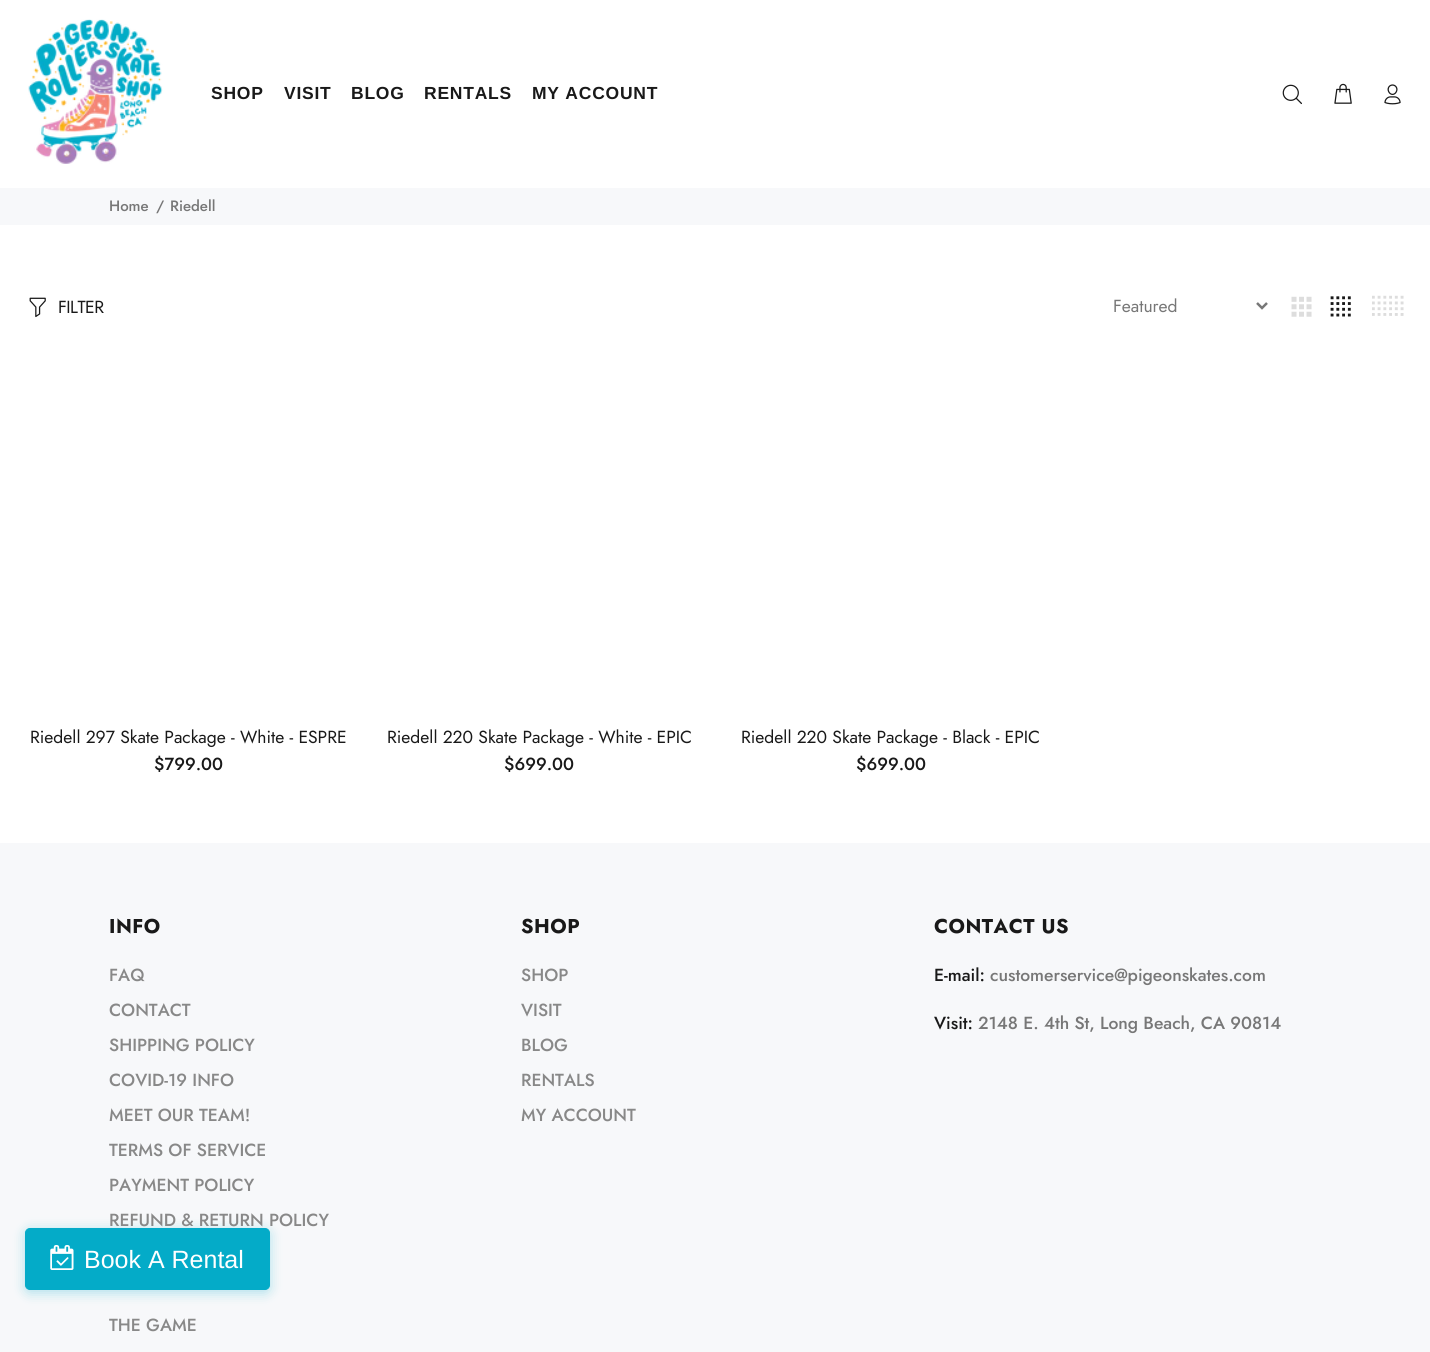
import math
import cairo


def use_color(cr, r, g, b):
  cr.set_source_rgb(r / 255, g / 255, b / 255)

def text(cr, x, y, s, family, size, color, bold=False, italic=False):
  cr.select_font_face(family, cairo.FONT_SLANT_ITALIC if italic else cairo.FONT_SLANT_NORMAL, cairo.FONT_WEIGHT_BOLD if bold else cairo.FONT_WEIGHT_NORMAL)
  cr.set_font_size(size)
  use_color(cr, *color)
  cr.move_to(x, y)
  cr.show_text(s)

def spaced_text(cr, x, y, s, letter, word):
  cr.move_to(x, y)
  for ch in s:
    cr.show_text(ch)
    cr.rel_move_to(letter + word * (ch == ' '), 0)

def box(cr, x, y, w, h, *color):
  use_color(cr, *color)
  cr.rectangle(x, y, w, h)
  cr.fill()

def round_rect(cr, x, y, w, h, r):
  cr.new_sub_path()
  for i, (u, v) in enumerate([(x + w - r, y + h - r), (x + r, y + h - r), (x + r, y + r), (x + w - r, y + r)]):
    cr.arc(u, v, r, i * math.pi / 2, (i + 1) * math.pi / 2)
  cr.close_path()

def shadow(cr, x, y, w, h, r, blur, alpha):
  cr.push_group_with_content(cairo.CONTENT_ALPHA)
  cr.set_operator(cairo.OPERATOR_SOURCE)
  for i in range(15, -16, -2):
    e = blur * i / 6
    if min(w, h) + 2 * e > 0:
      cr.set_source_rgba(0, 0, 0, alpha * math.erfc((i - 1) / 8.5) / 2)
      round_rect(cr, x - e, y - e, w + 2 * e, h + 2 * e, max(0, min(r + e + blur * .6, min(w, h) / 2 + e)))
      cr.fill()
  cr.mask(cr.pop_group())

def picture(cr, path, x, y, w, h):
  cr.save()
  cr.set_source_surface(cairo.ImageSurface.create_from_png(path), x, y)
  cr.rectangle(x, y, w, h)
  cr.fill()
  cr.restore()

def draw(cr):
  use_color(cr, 255, 255, 255)
  cr.paint()
  picture(cr, "img_01.png", 28, 19, 135, 145)
  picture(cr, "img_02.png", 1282, 84, 20, 21)
  picture(cr, "img_03.png", 1334, 83, 18, 21)
  picture(cr, "img_04.png", 1384, 84, 17, 21)
  box(cr, 0, 188, 1430, 37, 247, 248, 250)
  picture(cr, "img_05.png", 29, 297, 17, 21)
  cr.new_path()
  cr.move_to(1257, 303)
  cr.line_to(1262, 308)
  cr.line_to(1267, 303)
  use_color(cr, 119, 119, 119)
  cr.set_line_width(2.5)
  cr.stroke()
  picture(cr, "img_06.png", 1291, 296, 21, 21)
  picture(cr, "img_07.png", 1330, 296, 21, 21)
  picture(cr, "img_08.png", 1372, 295, 32, 21)
  box(cr, 0, 843, 1430, 509, 247, 248, 250)
  use_color(cr, 4, 171, 200)
  shadow(cr, 25, 1230, 245, 63, 5, 6, 0.3)
  use_color(cr, 4, 171, 200)
  round_rect(cr, 25.5, 1228.5, 244, 61, 4.5)
  cr.fill_preserve()
  cr.set_line_width(1)
  cr.stroke()
  picture(cr, "img_09.png", 50, 1245, 24, 25)
  cr.select_font_face("Liberation Sans", cairo.FONT_SLANT_NORMAL, cairo.FONT_WEIGHT_BOLD)
  cr.set_font_size(17.5)
  use_color(cr, 25, 25, 25)
  spaced_text(cr, 211, 99, "SHOP", 0.75, 0)
  spaced_text(cr, 284, 99, "VISIT", 0.75, 0)
  spaced_text(cr, 351, 99, "BLOG", 0.75, 0)
  spaced_text(cr, 424, 99, "RENTALS", 0.75, 0)
  spaced_text(cr, 532, 99, "MY ACCOUNT", 0.75, 0)
  text(cr, 109, 211, "Home", "Jost Medium", 15, (119, 119, 119))
  text(cr, 156, 211, "/", "Jost Medium", 15, (119, 119, 119))
  text(cr, 170, 211, "Riedell", "Jost Medium", 15, (119, 119, 119))
  cr.select_font_face("Jost")
  cr.set_font_size(17.5)
  use_color(cr, 25, 25, 25)
  spaced_text(cr, 58, 313, "FILTER", -0.5, 0)
  text(cr, 1113, 312, "Featured", "Jost", 17.5, (119, 119, 119))
  text(cr, 30, 743, "Riedell 297 Skate Package - White - ESPRE", "Jost", 17.5, (25, 25, 25))
  text(cr, 154, 770, "$799.00", "Jost Medium", 17.5, (25, 25, 25))
  text(cr, 387, 743, "Riedell 220 Skate Package - White - EPIC", "Jost", 17.5, (25, 25, 25))
  text(cr, 504, 770, "$699.00", "Jost Medium", 17.5, (25, 25, 25))
  text(cr, 741, 743, "Riedell 220 Skate Package - Black - EPIC", "Jost", 17.5, (25, 25, 25))
  text(cr, 856, 770, "$699.00", "Jost Medium", 17.5, (25, 25, 25))
  cr.select_font_face("Jost", cairo.FONT_SLANT_NORMAL, cairo.FONT_WEIGHT_BOLD)
  cr.set_font_size(20)
  spaced_text(cr, 109, 933, "INFO", 0.5, 0)
  text(cr, 109, 981, "FAQ", "Jost Medium", 17.5, (136, 136, 136))
  text(cr, 109, 1016, "CONTACT", "Jost Medium", 17.5, (136, 136, 136))
  text(cr, 109, 1051, "SHIPPING POLICY", "Jost Medium", 17.5, (136, 136, 136))
  text(cr, 109, 1086, "COVID-19 INFO", "Jost Medium", 17.5, (136, 136, 136))
  text(cr, 109, 1121, "MEET OUR TEAM!", "Jost Medium", 17.5, (136, 136, 136))
  text(cr, 109, 1156, "TERMS OF SERVICE", "Jost Medium", 17.5, (136, 136, 136))
  text(cr, 109, 1191, "PAYMENT POLICY", "Jost Medium", 17.5, (136, 136, 136))
  text(cr, 109, 1226, "REFUND & RETURN POLICY", "Jost Medium", 17.5, (136, 136, 136))
  text(cr, 109, 1331, "THE GAME", "Jost Medium", 17.5, (136, 136, 136))
  cr.select_font_face("Jost", cairo.FONT_SLANT_NORMAL, cairo.FONT_WEIGHT_BOLD)
  cr.set_font_size(20)
  use_color(cr, 25, 25, 25)
  spaced_text(cr, 521, 933, "SHOP", 0.5, 0)
  text(cr, 521, 981, "SHOP", "Jost Medium", 17.5, (136, 136, 136))
  text(cr, 521, 1016, "VISIT", "Jost Medium", 17.5, (136, 136, 136))
  text(cr, 521, 1051, "BLOG", "Jost Medium", 17.5, (136, 136, 136))
  text(cr, 521, 1086, "RENTALS", "Jost Medium", 17.5, (136, 136, 136))
  text(cr, 521, 1121, "MY ACCOUNT", "Jost Medium", 17.5, (136, 136, 136))
  cr.select_font_face("Jost", cairo.FONT_SLANT_NORMAL, cairo.FONT_WEIGHT_BOLD)
  cr.set_font_size(20)
  use_color(cr, 25, 25, 25)
  spaced_text(cr, 934, 933, "CONTACT US", 0.5, 0)
  text(cr, 934, 981, "E-mail:", "Jost Medium", 17.5, (25, 25, 25))
  text(cr, 990, 981, "customerservice@pigeonskates.com", "Jost Medium", 17.5, (119, 119, 119))
  text(cr, 934, 1029, "Visit:", "Jost Medium", 17.5, (25, 25, 25))
  text(cr, 978, 1029, "2148 E. 4th St, Long Beach, CA 90814", "Jost Medium", 17.5, (119, 119, 119))
  text(cr, 84, 1268, "Book A Rental", "Liberation Sans", 25, (255, 255, 255))


surface = cairo.ImageSurface(cairo.FORMAT_RGB24, 1430, 1352)
cr = cairo.Context(surface)
options = cairo.FontOptions()
options.set_hint_metrics(cairo.HINT_METRICS_OFF)
options.set_hint_style(cairo.HINT_STYLE_NONE)
cr.set_font_options(options)
cr.set_miter_limit(4)
draw(cr)
surface.write_to_png("out.png")
